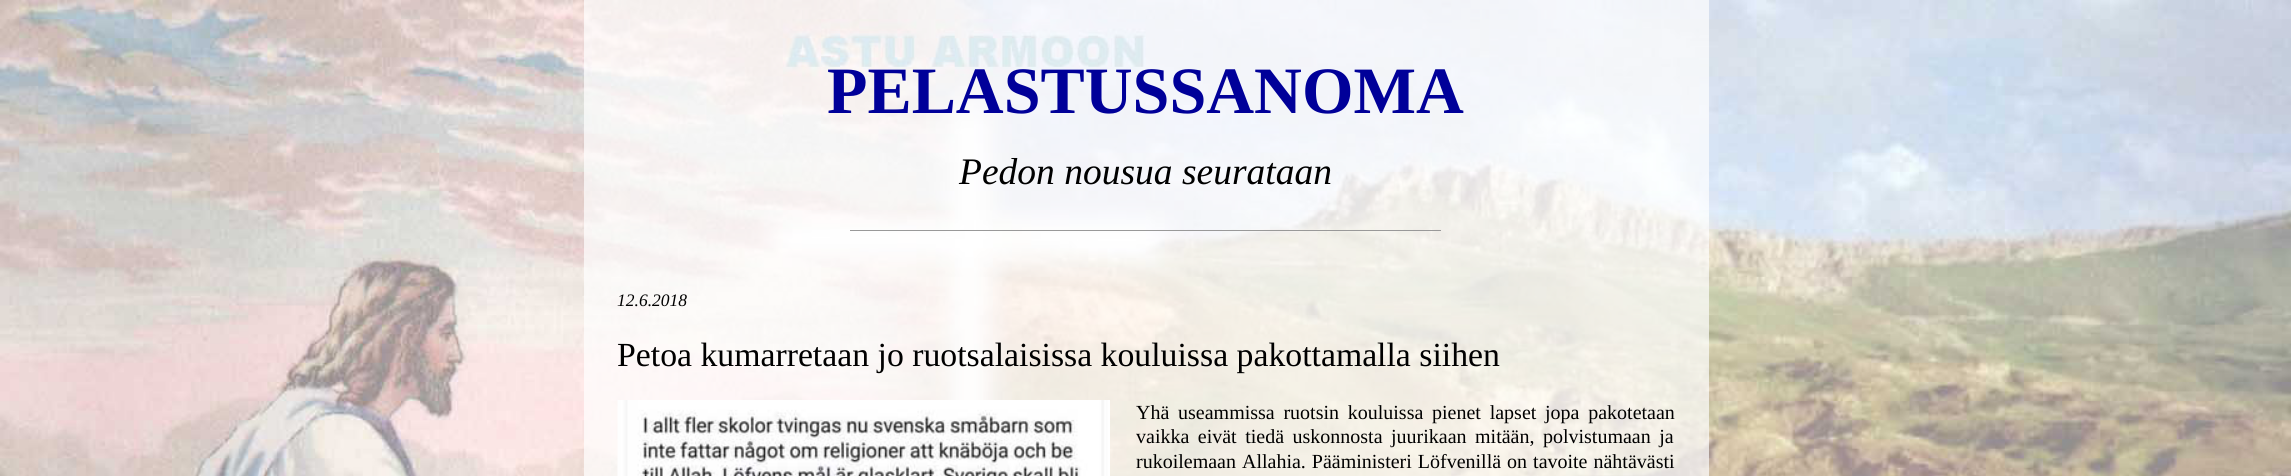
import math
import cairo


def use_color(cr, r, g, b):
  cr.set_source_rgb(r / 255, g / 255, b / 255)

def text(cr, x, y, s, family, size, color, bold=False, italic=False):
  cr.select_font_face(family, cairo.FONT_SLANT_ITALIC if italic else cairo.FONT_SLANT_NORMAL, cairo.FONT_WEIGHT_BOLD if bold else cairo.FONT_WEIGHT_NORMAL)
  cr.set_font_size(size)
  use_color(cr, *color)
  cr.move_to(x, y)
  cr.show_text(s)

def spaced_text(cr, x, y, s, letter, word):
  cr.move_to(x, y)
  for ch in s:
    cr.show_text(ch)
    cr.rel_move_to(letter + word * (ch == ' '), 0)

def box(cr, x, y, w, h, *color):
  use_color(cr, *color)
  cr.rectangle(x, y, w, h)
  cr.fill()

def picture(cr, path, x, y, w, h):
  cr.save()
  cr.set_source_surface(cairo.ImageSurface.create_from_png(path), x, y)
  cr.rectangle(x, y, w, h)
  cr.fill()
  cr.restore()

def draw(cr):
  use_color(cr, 255, 255, 255)
  cr.paint()
  picture(cr, "img_01.png", 0, 0, 2291, 476)
  cr.set_source_rgba(1, 1, 1, 0.7)
  cr.rectangle(584, 0, 1125, 476)
  cr.fill()
  box(cr, 850, 230, 591, 1, 153, 153, 153)
  picture(cr, "img_02.png", 617, 400, 493, 76)
  text(cr, 827, 113, "PELASTUSSANOMA", "Liberation Serif", 66.25, (0, 0, 153), bold=True)
  text(cr, 959, 184, "Pedon nousua seurataan", "Liberation Serif", 37.5, (0, 0, 0), italic=True)
  text(cr, 617, 306, "12.6.2018", "Liberation Serif", 17.5, (0, 0, 0), italic=True)
  text(cr, 617, 366, "Petoa kumarretaan jo ruotsalaisissa kouluissa pakottamalla siihen", "Liberation Serif", 33.75, (0, 0, 0))
  cr.set_font_size(20)
  spaced_text(cr, 1136, 419, "Yhä useammissa ruotsin kouluissa pienet lapset jopa pakotetaan", 0, 3.75)
  spaced_text(cr, 1136, 443, "vaikka eivät tiedä uskonnosta juurikaan mitään, polvistumaan ja", 0, 3.5)
  spaced_text(cr, 1136, 468, "rukoilemaan Allahia. Pääministeri Löfvenillä on tavoite nähtävästi", 0, 1)


surface = cairo.ImageSurface(cairo.FORMAT_RGB24, 2291, 476)
cr = cairo.Context(surface)
options = cairo.FontOptions()
options.set_hint_metrics(cairo.HINT_METRICS_OFF)
options.set_hint_style(cairo.HINT_STYLE_NONE)
cr.set_font_options(options)
cr.set_miter_limit(4)
draw(cr)
surface.write_to_png("out.png")
